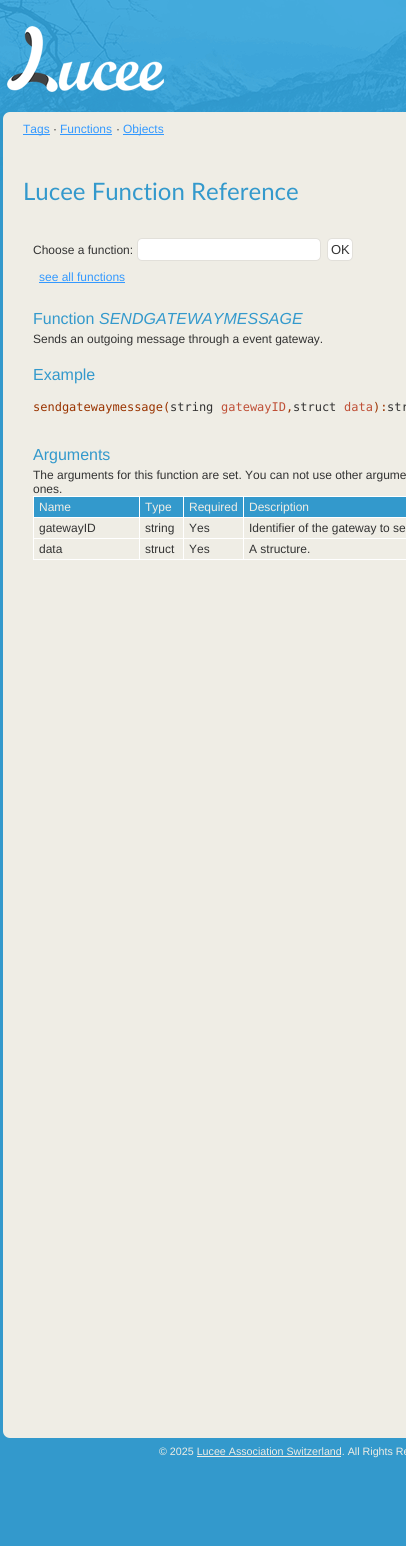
import math
import cairo


def use_color(cr, r, g, b):
  cr.set_source_rgb(r / 255, g / 255, b / 255)

def text(cr, x, y, s, family, size, color, bold=False, italic=False):
  cr.select_font_face(family, cairo.FONT_SLANT_ITALIC if italic else cairo.FONT_SLANT_NORMAL, cairo.FONT_WEIGHT_BOLD if bold else cairo.FONT_WEIGHT_NORMAL)
  cr.set_font_size(size)
  use_color(cr, *color)
  cr.move_to(x, y)
  cr.show_text(s)

def box(cr, x, y, w, h, *color):
  use_color(cr, *color)
  cr.rectangle(x, y, w, h)
  cr.fill()

def round_rect(cr, x, y, w, h, r):
  cr.new_sub_path()
  for i, (u, v) in enumerate([(x + w - r, y + h - r), (x + r, y + h - r), (x + r, y + r), (x + w - r, y + r)]):
    cr.arc(u, v, r, i * math.pi / 2, (i + 1) * math.pi / 2)
  cr.close_path()

def picture(cr, path, x, y, w, h):
  cr.save()
  cr.set_source_surface(cairo.ImageSurface.create_from_png(path), x, y)
  cr.rectangle(x, y, w, h)
  cr.fill()
  cr.restore()

def draw(cr):
  use_color(cr, 51, 153, 204)
  cr.paint()
  picture(cr, "img_01.png", 0, 0, 406, 181)
  picture(cr, "img_02.png", 7, 26, 157, 66)
  use_color(cr, 239, 237, 229)
  round_rect(cr, 3, 112, 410, 1326, 7)
  cr.fill()
  box(cr, 23, 134, 27, 1, 51, 153, 255)
  box(cr, 60, 134, 52, 1, 51, 153, 255)
  box(cr, 123, 134, 41, 1, 51, 153, 255)
  use_color(cr, 255, 255, 255)
  round_rect(cr, 137.5, 238.5, 183, 22, 4.5)
  cr.fill_preserve()
  use_color(cr, 226, 224, 218)
  cr.set_line_width(1)
  cr.stroke()
  use_color(cr, 255, 255, 255)
  round_rect(cr, 327.5, 238.5, 25, 22, 4.5)
  cr.fill_preserve()
  use_color(cr, 226, 224, 218)
  cr.stroke()
  box(cr, 39, 282, 86, 1, 51, 153, 255)
  box(cr, 34, 497, 105, 20, 51, 153, 204)
  box(cr, 243, 496, 163, 1, 255, 255, 255)
  box(cr, 243, 517, 163, 1, 255, 255, 255)
  box(cr, 243, 538, 163, 1, 255, 255, 255)
  box(cr, 243, 559, 163, 1, 255, 255, 255)
  box(cr, 243, 538, 1, 22, 255, 255, 255)
  box(cr, 183, 538, 61, 1, 255, 255, 255)
  box(cr, 243, 517, 1, 22, 255, 255, 255)
  box(cr, 183, 517, 61, 1, 255, 255, 255)
  box(cr, 243, 496, 1, 22, 255, 255, 255)
  box(cr, 183, 496, 61, 1, 255, 255, 255)
  box(cr, 183, 559, 61, 1, 255, 255, 255)
  box(cr, 183, 538, 1, 22, 255, 255, 255)
  box(cr, 139, 538, 45, 1, 255, 255, 255)
  box(cr, 183, 517, 1, 22, 255, 255, 255)
  box(cr, 139, 517, 45, 1, 255, 255, 255)
  box(cr, 183, 496, 1, 22, 255, 255, 255)
  box(cr, 139, 496, 45, 1, 255, 255, 255)
  box(cr, 139, 559, 45, 1, 255, 255, 255)
  box(cr, 139, 538, 1, 22, 255, 255, 255)
  box(cr, 33, 538, 107, 1, 255, 255, 255)
  box(cr, 139, 517, 1, 22, 255, 255, 255)
  box(cr, 33, 517, 107, 1, 255, 255, 255)
  box(cr, 139, 496, 1, 22, 255, 255, 255)
  box(cr, 33, 496, 107, 1, 255, 255, 255)
  box(cr, 33, 559, 107, 1, 255, 255, 255)
  box(cr, 33, 538, 1, 22, 255, 255, 255)
  box(cr, 33, 517, 1, 22, 255, 255, 255)
  box(cr, 33, 496, 1, 22, 255, 255, 255)
  box(cr, 140, 497, 43, 20, 51, 153, 204)
  box(cr, 184, 497, 59, 20, 51, 153, 204)
  box(cr, 244, 497, 162, 20, 51, 153, 204)
  box(cr, 197, 1456, 144, 1, 239, 237, 229)
  text(cr, 23, 133, "Tags", "Liberation Sans", 12, (51, 153, 255))
  text(cr, 53, 133, "·", "Liberation Sans", 12, (51, 51, 51))
  text(cr, 60, 133, "Functions", "Liberation Sans", 12, (51, 153, 255))
  text(cr, 116, 133, "·", "Liberation Sans", 12, (51, 51, 51))
  text(cr, 123, 133, "Objects", "Liberation Sans", 12, (51, 153, 255))
  text(cr, 23, 200, "Lucee Function Reference", "Lato", 24, (51, 153, 204))
  text(cr, 33, 254, "Choose a function:", "Liberation Sans", 12, (51, 51, 51))
  text(cr, 331, 254, "OK", "Liberation Sans", 13, (51, 51, 51))
  text(cr, 39, 281, "see all functions", "Liberation Sans", 12, (51, 153, 255))
  text(cr, 33, 324, "Function", "Liberation Sans", 16, (51, 153, 204))
  text(cr, 99, 324, "SENDGATEWAYMESSAGE", "Liberation Sans", 16, (51, 153, 204), italic=True)
  text(cr, 33, 343, "Sends an outgoing message through a event gateway.", "Liberation Sans", 12, (51, 51, 51))
  text(cr, 33, 380, "Example", "Liberation Sans", 16, (51, 153, 204))
  text(cr, 33, 411, "sendgatewaymessage(", "DejaVu Sans Mono", 12, (153, 51, 0))
  text(cr, 170, 411, "string", "DejaVu Sans Mono", 12, (51, 51, 51))
  text(cr, 221, 411, "gatewayID", "DejaVu Sans Mono", 12, (191, 79, 54))
  text(cr, 286, 411, ",", "DejaVu Sans Mono", 12, (153, 51, 0))
  text(cr, 293, 411, "struct", "DejaVu Sans Mono", 12, (51, 51, 51))
  text(cr, 344, 411, "data", "DejaVu Sans Mono", 12, (191, 79, 54))
  text(cr, 373, 411, "):", "DejaVu Sans Mono", 12, (153, 51, 0))
  text(cr, 387, 411, "str", "DejaVu Sans Mono", 12, (51, 51, 51))
  text(cr, 33, 460, "Arguments", "Liberation Sans", 16, (51, 153, 204))
  text(cr, 33, 479, "The arguments for this function are set. You can not use other argume", "Liberation Sans", 12, (51, 51, 51))
  text(cr, 33, 493, "ones.", "Liberation Sans", 12, (51, 51, 51))
  text(cr, 39, 511, "Name", "Liberation Sans", 12, (239, 237, 229))
  text(cr, 145, 511, "Type", "Liberation Sans", 12, (239, 237, 229))
  text(cr, 189, 511, "Required", "Liberation Sans", 12, (239, 237, 229))
  text(cr, 249, 511, "Description", "Liberation Sans", 12, (239, 237, 229))
  text(cr, 39, 532, "gatewayID", "Liberation Sans", 12, (51, 51, 51))
  text(cr, 145, 532, "string", "Liberation Sans", 12, (51, 51, 51))
  text(cr, 189, 532, "Yes", "Liberation Sans", 12, (51, 51, 51))
  text(cr, 249, 532, "Identifier of the gateway to se", "Liberation Sans", 12, (51, 51, 51))
  text(cr, 39, 553, "data", "Liberation Sans", 12, (51, 51, 51))
  text(cr, 145, 553, "struct", "Liberation Sans", 12, (51, 51, 51))
  text(cr, 189, 553, "Yes", "Liberation Sans", 12, (51, 51, 51))
  text(cr, 249, 553, "A structure.", "Liberation Sans", 12, (51, 51, 51))
  text(cr, 159, 1455, "© 2025 Lucee Association Switzerland. All Rights Re", "Liberation Sans", 10.7, (239, 237, 229))


surface = cairo.ImageSurface(cairo.FORMAT_RGB24, 406, 1546)
cr = cairo.Context(surface)
options = cairo.FontOptions()
options.set_hint_metrics(cairo.HINT_METRICS_OFF)
options.set_hint_style(cairo.HINT_STYLE_NONE)
cr.set_font_options(options)
cr.set_miter_limit(4)
draw(cr)
surface.write_to_png("out.png")
